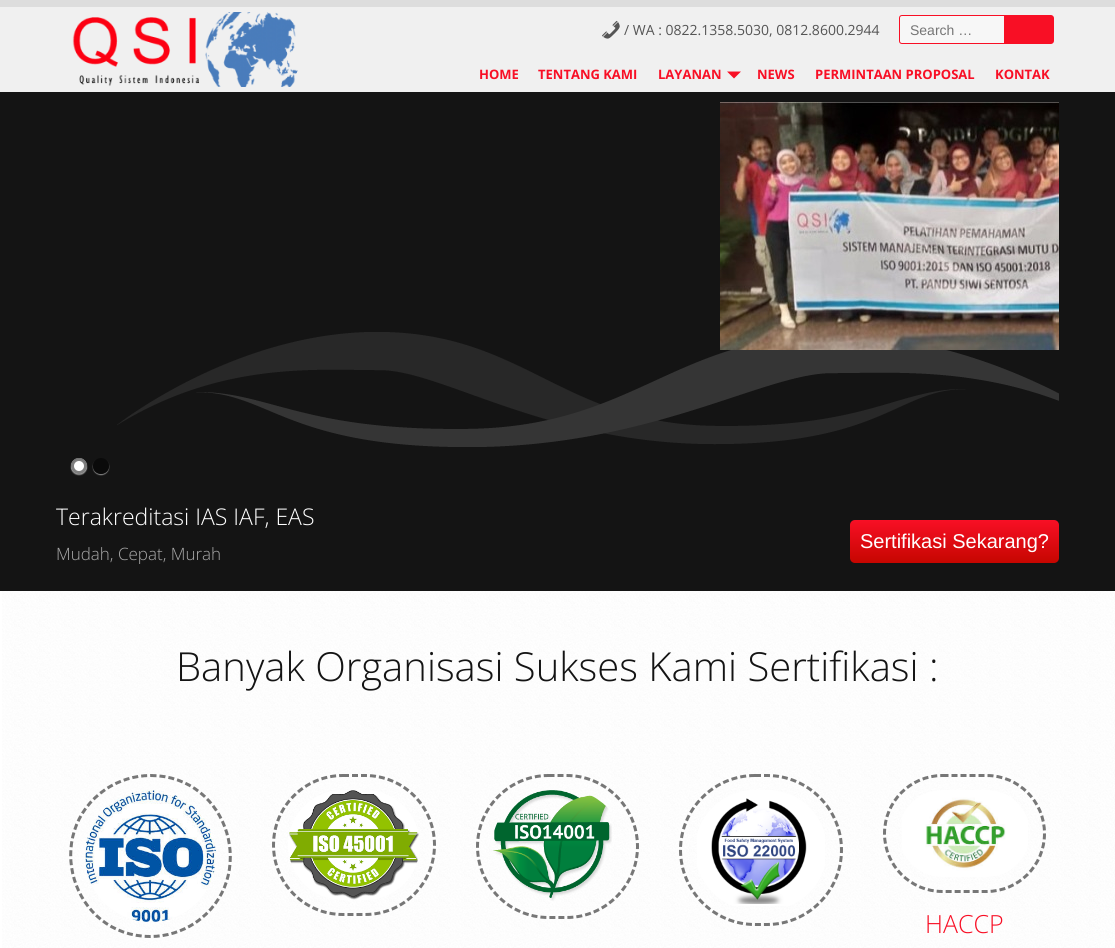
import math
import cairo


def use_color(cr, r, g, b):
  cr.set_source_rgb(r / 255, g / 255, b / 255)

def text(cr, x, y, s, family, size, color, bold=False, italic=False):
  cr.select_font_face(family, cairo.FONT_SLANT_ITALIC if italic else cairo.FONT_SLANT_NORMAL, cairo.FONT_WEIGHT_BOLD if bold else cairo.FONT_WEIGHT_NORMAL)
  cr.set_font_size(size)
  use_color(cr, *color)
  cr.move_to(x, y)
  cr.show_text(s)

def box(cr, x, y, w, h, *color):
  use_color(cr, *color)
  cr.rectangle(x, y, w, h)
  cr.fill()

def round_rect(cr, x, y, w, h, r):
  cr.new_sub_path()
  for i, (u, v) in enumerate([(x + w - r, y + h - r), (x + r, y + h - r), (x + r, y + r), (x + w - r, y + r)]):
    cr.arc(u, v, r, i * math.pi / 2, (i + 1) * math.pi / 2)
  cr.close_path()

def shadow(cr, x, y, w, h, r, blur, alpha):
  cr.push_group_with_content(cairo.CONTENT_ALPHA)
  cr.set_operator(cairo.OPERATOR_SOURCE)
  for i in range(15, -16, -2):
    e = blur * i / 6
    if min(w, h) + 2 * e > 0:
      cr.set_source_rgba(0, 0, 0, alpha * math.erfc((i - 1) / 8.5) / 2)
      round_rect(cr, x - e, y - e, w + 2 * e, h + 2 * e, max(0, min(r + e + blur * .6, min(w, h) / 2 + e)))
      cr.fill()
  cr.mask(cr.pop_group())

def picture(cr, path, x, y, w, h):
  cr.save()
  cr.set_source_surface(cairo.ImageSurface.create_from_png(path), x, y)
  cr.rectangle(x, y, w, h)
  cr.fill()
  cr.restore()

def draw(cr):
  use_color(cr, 255, 255, 255)
  cr.paint()
  picture(cr, "img_01.png", 2, 591, 1113, 357)
  box(cr, 0, 7, 1115, 85, 240, 240, 240)
  box(cr, 0, 0, 1115, 7, 221, 221, 221)
  picture(cr, "img_02.png", 72, 12, 226, 75)
  picture(cr, "img_03.png", 602, 20, 18, 19)
  use_color(cr, 247, 247, 247)
  cr.new_path()
  cr.move_to(902, 15.5)
  cr.line_to(1008.5, 15.5)
  cr.line_to(1008.5, 43.5)
  cr.line_to(902, 43.5)
  cr.curve_to(900.5, 43.5, 899.5, 42.5, 899.5, 41)
  cr.line_to(899.5, 18)
  cr.curve_to(899.5, 16.5, 900.5, 15.5, 902, 15.5)
  cr.close_path()
  cr.fill_preserve()
  use_color(cr, 248, 15, 37)
  cr.set_line_width(1)
  cr.stroke()
  cr.new_path()
  cr.move_to(1004, 15)
  cr.line_to(1051, 15)
  cr.curve_to(1052.5, 15, 1054, 16.5, 1054, 18)
  cr.line_to(1054, 41)
  cr.curve_to(1054, 42.5, 1052.5, 44, 1051, 44)
  cr.line_to(1004, 44)
  cr.close_path()
  cr.fill()
  cr.new_path()
  cr.move_to(727, 71.5)
  cr.line_to(741, 71.5)
  cr.line_to(734, 78.5)
  cr.close_path()
  cr.fill()
  box(cr, 0, 92, 1115, 499, 20, 20, 20)
  picture(cr, "img_05.png", 117, 332, 942, 115)
  picture(cr, "img_04.png", 720, 102, 339, 248)
  use_color(cr, 255, 255, 255)
  shadow(cr, 71, 459, 16, 16, 8, 0.5, 0.5)
  use_color(cr, 255, 255, 255)
  cr.arc(79, 466, 8, 0, 2 * math.pi)
  cr.fill()
  cr.arc(79, 466, 6.5, 0, 2 * math.pi)
  cr.set_source_rgba(0, 0, 0, 0.5)
  cr.set_line_width(3)
  cr.stroke()
  cr.set_source_rgba(0, 0, 0, 0.1)
  cr.new_path()
  cr.move_to(79, 459)
  cr.curve_to(85, 459, 87.5, 465, 86, 469.5)
  cr.curve_to(91, 460, 76, 452.5, 71.5, 463)
  cr.curve_to(70.5, 465, 71, 467.5, 72, 469.5)
  cr.curve_to(70.5, 465, 73, 459, 79, 459)
  cr.close_path()
  cr.fill()
  cr.save()
  cr.set_fill_rule(cairo.FILL_RULE_EVEN_ODD)
  cr.new_path()
  cr.move_to(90, 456)
  cr.line_to(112, 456)
  cr.line_to(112, 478)
  cr.line_to(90, 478)
  cr.close_path()
  cr.move_to(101, 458)
  cr.curve_to(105.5, 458, 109, 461.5, 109, 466)
  cr.curve_to(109, 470.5, 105.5, 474, 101, 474)
  cr.curve_to(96.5, 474, 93, 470.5, 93, 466)
  cr.curve_to(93, 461.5, 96.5, 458, 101, 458)
  cr.close_path()
  cr.clip()
  use_color(cr, 255, 255, 255)
  shadow(cr, 93, 459, 16, 16, 8, 0.5, 0.5)
  cr.restore()
  cr.set_source_rgba(0, 0, 0, 0.5)
  cr.arc(101, 466, 8, 0, 2 * math.pi)
  cr.fill()
  gradient = cairo.LinearGradient(955, 520, 955, 563)
  gradient.add_color_stop_rgba(0, 0.973, 0.059, 0.145, 1)
  gradient.add_color_stop_rgba(1, 0.776, 0.024, 0, 1)
  cr.set_source(gradient)
  round_rect(cr, 850, 520, 209, 43, 5)
  cr.fill()
  picture(cr, "img_06.png", 85, 790, 131, 132)
  cr.new_path()
  cr.move_to(150.5, 775.5)
  cr.curve_to(229.5, 775.5, 260, 879, 195, 923)
  cr.curve_to(182, 931.5, 166.5, 936.5, 150.5, 936.5)
  cr.curve_to(71.5, 936.5, 41, 833, 106, 789)
  cr.curve_to(119, 780.5, 134.5, 775.5, 150.5, 775.5)
  cr.close_path()
  use_color(cr, 119, 119, 119)
  cr.set_dash([6, 3])
  cr.stroke()
  picture(cr, "img_07.png", 288, 790, 132, 110)
  cr.new_path()
  cr.move_to(343, 775.5)
  cr.line_to(365, 775.5)
  cr.curve_to(403.5, 775.5, 434.5, 806.5, 434.5, 845)
  cr.curve_to(434.5, 883.5, 403.5, 914.5, 365, 914.5)
  cr.line_to(343, 914.5)
  cr.curve_to(304.5, 914.5, 273.5, 883.5, 273.5, 845)
  cr.curve_to(273.5, 806.5, 304.5, 775.5, 343, 775.5)
  cr.close_path()
  cr.stroke()
  picture(cr, "img_08.png", 492, 790, 120, 111)
  cr.new_path()
  cr.move_to(548.5, 775.5)
  cr.line_to(566.5, 775.5)
  cr.curve_to(605.5, 775.5, 637.5, 807.5, 637.5, 846.5)
  cr.curve_to(637.5, 885.5, 605.5, 917.5, 566.5, 917.5)
  cr.line_to(548.5, 917.5)
  cr.curve_to(509.5, 917.5, 477.5, 885.5, 477.5, 846.5)
  cr.curve_to(477.5, 807.5, 509.5, 775.5, 548.5, 775.5)
  cr.close_path()
  cr.stroke()
  picture(cr, "img_09.png", 697, 790, 128, 116)
  cr.new_path()
  cr.move_to(755, 775.5)
  cr.line_to(767, 775.5)
  cr.curve_to(808, 775.5, 841.5, 809, 841.5, 850)
  cr.curve_to(841.5, 891, 808, 924.5, 767, 924.5)
  cr.line_to(755, 924.5)
  cr.curve_to(714, 924.5, 680.5, 891, 680.5, 850)
  cr.curve_to(680.5, 809, 714, 775.5, 755, 775.5)
  cr.close_path()
  cr.stroke()
  picture(cr, "img_10.png", 902, 790, 126, 87)
  cr.new_path()
  cr.move_to(942.5, 775.5)
  cr.line_to(986.5, 775.5)
  cr.curve_to(1018.5, 775.5, 1044.5, 801.5, 1044.5, 833.5)
  cr.curve_to(1044.5, 865.5, 1018.5, 891.5, 986.5, 891.5)
  cr.line_to(942.5, 891.5)
  cr.curve_to(910.5, 891.5, 884.5, 865.5, 884.5, 833.5)
  cr.curve_to(884.5, 801.5, 910.5, 775.5, 942.5, 775.5)
  cr.close_path()
  cr.stroke()
  text(cr, 624, 35, "/ WA : 0822.1358.5030, 0812.8600.2944", "Open Sans", 14, (85, 85, 85))
  text(cr, 910, 35, "Search …", "Liberation Sans", 14, (117, 117, 117))
  text(cr, 479, 79, "HOME", "Open Sans", 13, (248, 15, 37), bold=True)
  text(cr, 538, 79, "TENTANG KAMI", "Open Sans", 13, (248, 15, 37), bold=True)
  text(cr, 658, 79, "LAYANAN", "Open Sans", 13, (248, 15, 37), bold=True)
  text(cr, 757, 79, "NEWS", "Open Sans", 13, (248, 15, 37), bold=True)
  text(cr, 815, 79, "PERMINTAAN PROPOSAL", "Open Sans", 13, (248, 15, 37), bold=True)
  text(cr, 995, 79, "KONTAK", "Open Sans", 13, (248, 15, 37), bold=True)
  text(cr, 56, 525, "Terakreditasi IAS IAF, EAS", "Open Sans Light", 23, (255, 255, 255))
  text(cr, 860, 548, "Sertifikasi Sekarang?", "Liberation Sans", 20, (255, 255, 255))
  text(cr, 56, 560, "Mudah, Cepat, Murah", "Open Sans Light", 17, (170, 170, 170))
  text(cr, 176, 681, "Banyak Organisasi Sukses Kami Sertifikasi :", "Open Sans Light", 40, (20, 20, 20))
  text(cr, 925, 933, "HACCP", "Open Sans Light", 25, (248, 15, 37))


surface = cairo.ImageSurface(cairo.FORMAT_RGB24, 1115, 948)
cr = cairo.Context(surface)
options = cairo.FontOptions()
options.set_hint_metrics(cairo.HINT_METRICS_OFF)
options.set_hint_style(cairo.HINT_STYLE_NONE)
cr.set_font_options(options)
cr.set_miter_limit(4)
draw(cr)
surface.write_to_png("out.png")
